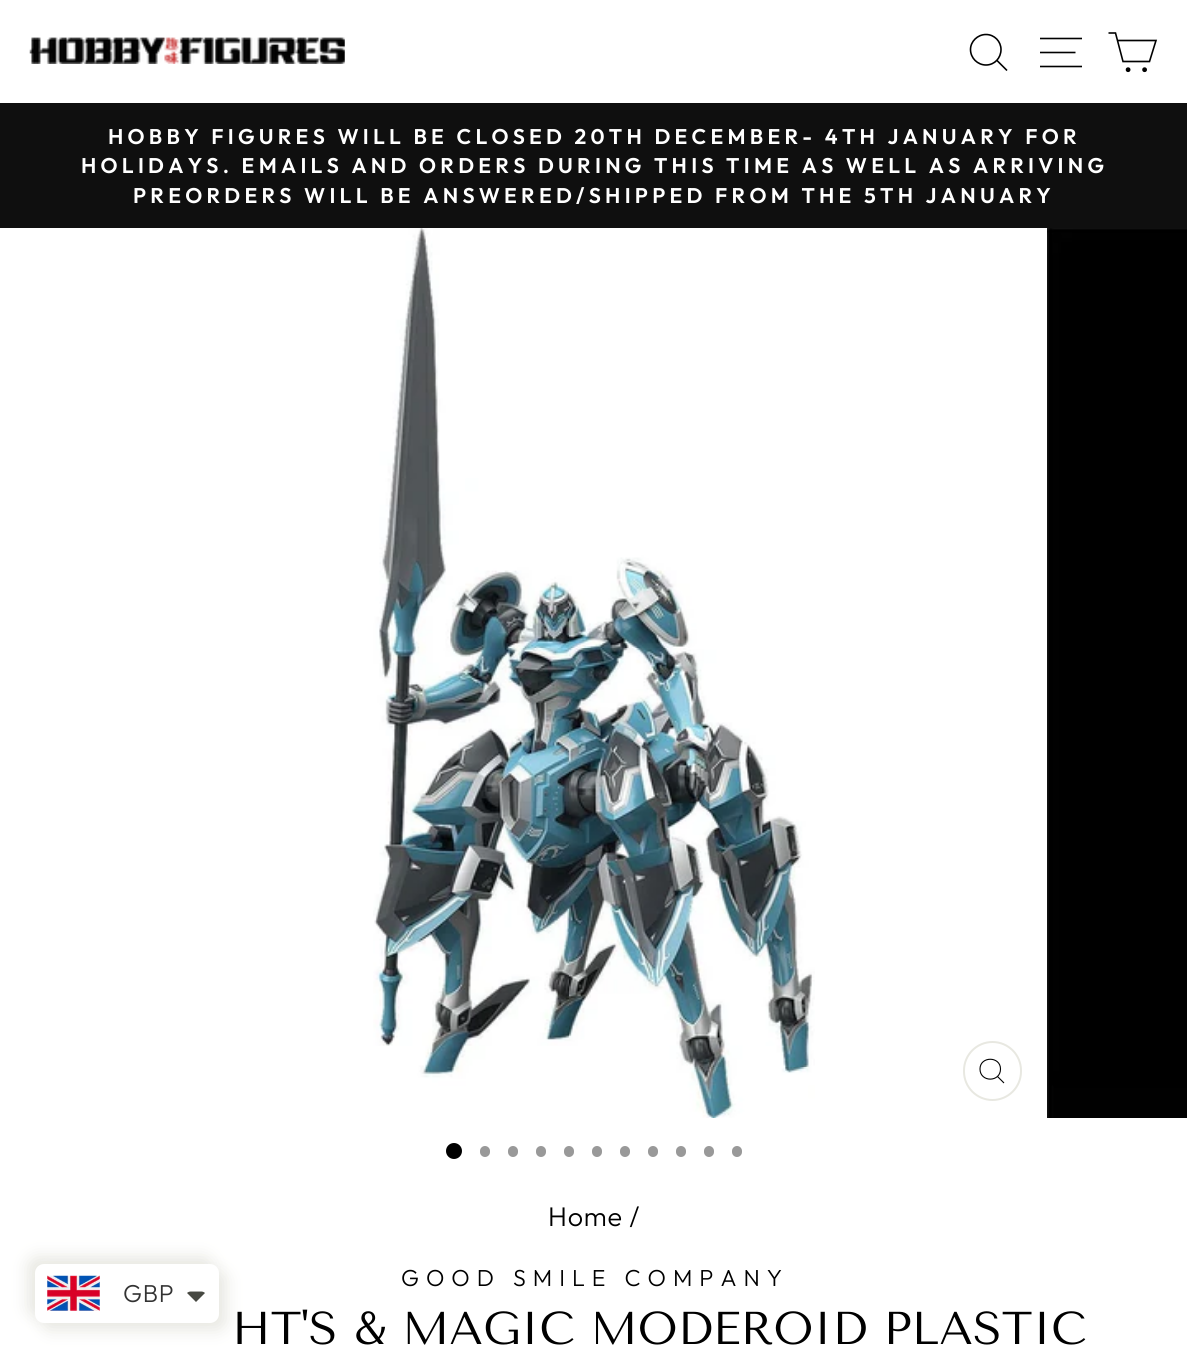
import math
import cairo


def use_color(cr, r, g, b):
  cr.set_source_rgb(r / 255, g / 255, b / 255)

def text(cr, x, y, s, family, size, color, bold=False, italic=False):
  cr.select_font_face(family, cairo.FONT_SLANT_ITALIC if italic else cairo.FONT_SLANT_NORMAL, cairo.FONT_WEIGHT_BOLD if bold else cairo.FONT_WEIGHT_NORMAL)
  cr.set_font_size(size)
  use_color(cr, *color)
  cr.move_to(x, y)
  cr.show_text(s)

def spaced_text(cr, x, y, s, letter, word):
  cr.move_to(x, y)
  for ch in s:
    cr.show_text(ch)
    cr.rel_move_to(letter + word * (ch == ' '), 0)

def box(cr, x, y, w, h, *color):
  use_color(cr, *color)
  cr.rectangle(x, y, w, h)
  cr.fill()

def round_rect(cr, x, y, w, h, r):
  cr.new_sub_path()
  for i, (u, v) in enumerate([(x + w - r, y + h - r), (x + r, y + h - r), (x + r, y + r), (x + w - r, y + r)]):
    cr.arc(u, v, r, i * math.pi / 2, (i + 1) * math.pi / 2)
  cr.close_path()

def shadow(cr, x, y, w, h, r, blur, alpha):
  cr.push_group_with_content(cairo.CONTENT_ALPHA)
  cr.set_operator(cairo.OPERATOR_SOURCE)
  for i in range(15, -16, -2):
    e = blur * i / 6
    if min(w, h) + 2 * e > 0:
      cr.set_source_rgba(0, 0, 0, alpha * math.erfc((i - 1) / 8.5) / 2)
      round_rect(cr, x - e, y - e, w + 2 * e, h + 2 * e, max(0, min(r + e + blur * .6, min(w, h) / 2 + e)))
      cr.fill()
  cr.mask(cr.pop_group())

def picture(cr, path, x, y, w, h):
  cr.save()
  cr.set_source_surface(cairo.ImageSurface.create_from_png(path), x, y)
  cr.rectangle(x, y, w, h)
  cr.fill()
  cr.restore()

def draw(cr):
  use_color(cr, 255, 255, 255)
  cr.paint()
  picture(cr, "img_01.png", 29, 37, 316, 27)
  cr.new_path()
  cr.move_to(1001, 49.5)
  cr.curve_to(1001, 58, 994.5, 65, 986, 65)
  cr.curve_to(977.5, 65, 970.5, 58, 970.5, 49.5)
  cr.curve_to(970.5, 41.5, 977.5, 34.5, 986, 34.5)
  cr.curve_to(994.5, 34.5, 1001, 41.5, 1001, 49.5)
  cr.close_path()
  cr.move_to(1007, 70.5)
  cr.line_to(997, 60.5)
  use_color(cr, 0, 0, 0)
  cr.set_line_width(1.6)
  cr.stroke()
  cr.new_path()
  cr.move_to(1040, 38.5)
  cr.line_to(1082, 38.5)
  cr.move_to(1040, 52.5)
  cr.line_to(1075.5, 52.5)
  cr.move_to(1040, 66.5)
  cr.line_to(1082, 66.5)
  cr.stroke()
  cr.new_path()
  cr.move_to(1117.5, 40.5)
  cr.line_to(1156, 40.5)
  cr.line_to(1149.5, 61.5)
  cr.line_to(1123, 61.5)
  cr.line_to(1115.5, 33)
  cr.line_to(1108.5, 33)
  cr.stroke()
  cr.arc(1128.1, 69.7, 1.6, 0, 2 * math.pi)
  cr.fill_preserve()
  cr.stroke()
  cr.arc(1144.6, 69.7, 1.6, 0, 2 * math.pi)
  cr.fill_preserve()
  cr.stroke()
  box(cr, 0, 103, 1187, 125, 15, 15, 15)
  picture(cr, "img_02.png", 373, 228, 442, 890)
  round_rect(cr, 964, 1042, 57, 58, 28.5)
  use_color(cr, 232, 232, 225)
  cr.set_line_width(2)
  cr.stroke()
  cr.new_path()
  cr.move_to(1000.5, 1069)
  cr.curve_to(1000.5, 1082.5, 980, 1082.5, 980, 1069)
  cr.curve_to(980, 1056, 1000.5, 1056, 1000.5, 1069)
  cr.close_path()
  cr.move_to(1004, 1083)
  cr.line_to(997.5, 1076.5)
  use_color(cr, 0, 0, 0)
  cr.set_line_width(1.1)
  cr.stroke()
  picture(cr, "img_03.png", 1047, 228, 140, 890)
  cr.arc(454, 1151, 8, 0, 2 * math.pi)
  cr.fill()
  use_color(cr, 153, 153, 153)
  round_rect(cr, 480, 1146, 10, 11, 5)
  cr.fill()
  round_rect(cr, 508, 1146, 10, 11, 5)
  cr.fill()
  round_rect(cr, 536, 1146, 10, 11, 5)
  cr.fill()
  round_rect(cr, 564, 1146, 10, 11, 5)
  cr.fill()
  round_rect(cr, 592, 1146, 10, 11, 5)
  cr.fill()
  round_rect(cr, 620, 1146, 10, 11, 5)
  cr.fill()
  round_rect(cr, 648, 1146, 10, 11, 5)
  cr.fill()
  round_rect(cr, 676, 1146, 10, 11, 5)
  cr.fill()
  round_rect(cr, 704, 1146, 10, 11, 5)
  cr.fill()
  round_rect(cr, 732, 1146, 10, 11, 5)
  cr.fill()
  use_color(cr, 232, 232, 226)
  shadow(cr, 28, 1257, 184, 59, 9, 8, 1)
  shadow(cr, 42, 1271, 184, 59, 9, 8, 1)
  use_color(cr, 255, 255, 255)
  round_rect(cr, 35, 1264, 184, 59, 9)
  cr.fill()
  picture(cr, "img_04.png", 47, 1275, 53, 36)
  use_color(cr, 71, 73, 66)
  cr.new_path()
  cr.move_to(191, 1291.5)
  cr.curve_to(189.5, 1291.5, 188, 1292, 187, 1293)
  cr.line_to(196, 1302)
  cr.line_to(205, 1293)
  cr.curve_to(204, 1292, 202.5, 1291.5, 201, 1291.5)
  cr.close_path()
  cr.fill()
  cr.select_font_face("Outfit SemiBold")
  cr.set_font_size(21.25)
  use_color(cr, 255, 255, 255)
  spaced_text(cr, 108, 144, "HOBBY FIGURES WILL BE CLOSED 20TH DECEMBER- 4TH JANUARY FOR", 4.25, 0)
  spaced_text(cr, 81, 173, "HOLIDAYS. EMAILS AND ORDERS DURING THIS TIME AS WELL AS ARRIVING", 4.25, 0)
  spaced_text(cr, 133, 203, "PREORDERS WILL BE ANSWERED/SHIPPED FROM THE 5TH JANUARY", 4.25, 0)
  cr.select_font_face("Outfit Light")
  cr.set_font_size(27)
  use_color(cr, 0, 0, 0)
  spaced_text(cr, 548, 1226, "Home /", 0.75, 0)
  cr.set_font_size(23.2)
  spaced_text(cr, 401, 1286, "GOOD SMILE COMPANY", 7, 0)
  text(cr, 232, 1344, "HT'S & MAGIC MODEROID PLASTIC", "Tenor Sans", 46, (0, 0, 0))
  cr.select_font_face("Outfit Light")
  cr.set_font_size(24.5)
  use_color(cr, 51, 51, 51)
  spaced_text(cr, 123, 1302, "GBP", 0.75, 0)


surface = cairo.ImageSurface(cairo.FORMAT_RGB24, 1187, 1362)
cr = cairo.Context(surface)
options = cairo.FontOptions()
options.set_hint_metrics(cairo.HINT_METRICS_OFF)
options.set_hint_style(cairo.HINT_STYLE_NONE)
cr.set_font_options(options)
cr.set_miter_limit(4)
draw(cr)
surface.write_to_png("out.png")
